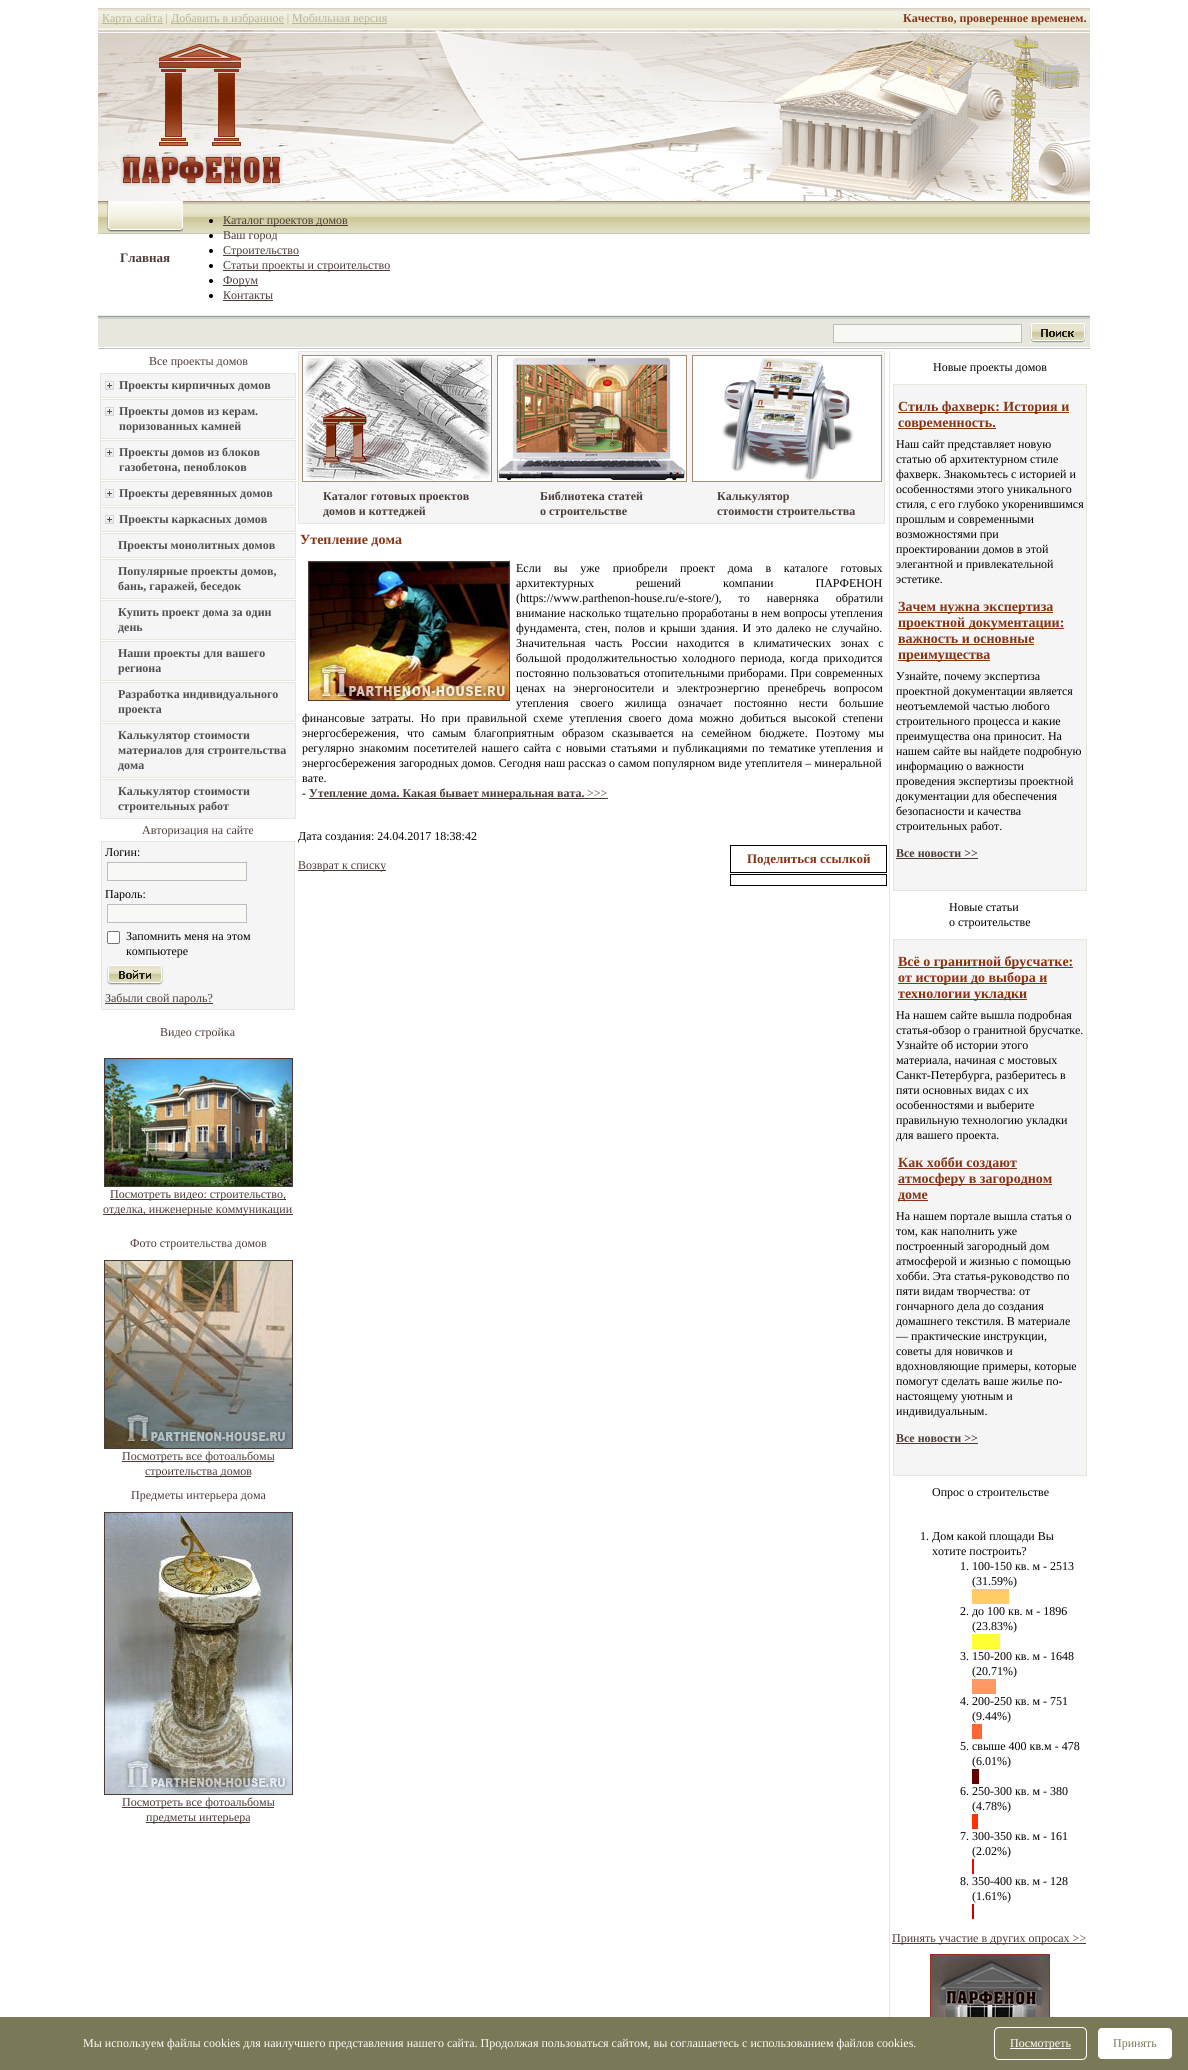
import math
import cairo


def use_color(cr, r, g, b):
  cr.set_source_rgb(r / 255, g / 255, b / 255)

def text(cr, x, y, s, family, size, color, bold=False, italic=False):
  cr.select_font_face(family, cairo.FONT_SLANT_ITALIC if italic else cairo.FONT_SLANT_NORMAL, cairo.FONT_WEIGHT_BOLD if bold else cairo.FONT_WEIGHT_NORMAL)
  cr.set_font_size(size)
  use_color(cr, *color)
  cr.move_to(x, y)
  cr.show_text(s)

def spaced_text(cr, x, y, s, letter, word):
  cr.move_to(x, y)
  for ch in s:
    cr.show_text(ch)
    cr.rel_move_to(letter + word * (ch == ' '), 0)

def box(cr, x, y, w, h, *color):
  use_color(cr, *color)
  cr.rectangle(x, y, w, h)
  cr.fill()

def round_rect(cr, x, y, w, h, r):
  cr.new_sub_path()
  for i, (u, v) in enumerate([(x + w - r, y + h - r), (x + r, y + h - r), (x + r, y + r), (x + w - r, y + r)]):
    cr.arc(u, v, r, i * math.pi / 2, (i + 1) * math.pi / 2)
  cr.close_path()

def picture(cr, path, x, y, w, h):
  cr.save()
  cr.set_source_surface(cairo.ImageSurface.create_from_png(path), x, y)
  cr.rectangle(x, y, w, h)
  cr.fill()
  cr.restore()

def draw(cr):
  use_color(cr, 255, 255, 255)
  cr.paint()
  picture(cr, "img_01.png", 98, 8, 992, 21)
  box(cr, 102, 23, 61, 1, 183, 183, 152)
  box(cr, 171, 23, 113, 1, 183, 183, 152)
  box(cr, 292, 23, 95, 1, 183, 183, 152)
  picture(cr, "img_02.png", 98, 29, 992, 172)
  picture(cr, "img_03.png", 98, 201, 992, 33)
  picture(cr, "img_04.png", 107, 201, 3, 31)
  picture(cr, "img_05.png", 110, 201, 70, 31)
  picture(cr, "img_06.png", 180, 201, 3, 31)
  use_color(cr, 0, 0, 0)
  cr.arc(211, 221, 2, 0, 2 * math.pi)
  cr.fill()
  box(cr, 223, 225, 125, 1, 76, 60, 56)
  use_color(cr, 0, 0, 0)
  cr.arc(211, 236, 2, 0, 2 * math.pi)
  cr.fill()
  cr.arc(211, 251, 2, 0, 2 * math.pi)
  cr.fill()
  box(cr, 223, 255, 76, 1, 76, 60, 56)
  use_color(cr, 0, 0, 0)
  cr.arc(211, 266, 2, 0, 2 * math.pi)
  cr.fill()
  box(cr, 223, 270, 167, 1, 76, 60, 56)
  use_color(cr, 0, 0, 0)
  cr.arc(211, 281, 2, 0, 2 * math.pi)
  cr.fill()
  box(cr, 223, 285, 35, 1, 76, 60, 56)
  use_color(cr, 0, 0, 0)
  cr.arc(211, 296, 2, 0, 2 * math.pi)
  cr.fill()
  box(cr, 223, 300, 50, 1, 76, 60, 56)
  box(cr, 98, 315, 992, 1, 236, 237, 233)
  box(cr, 98, 316, 992, 1, 149, 160, 163)
  box(cr, 98, 317, 992, 2, 203, 207, 202)
  box(cr, 98, 319, 992, 28, 231, 231, 222)
  use_color(cr, 248, 248, 245)
  cr.rectangle(833.5, 324.5, 188, 18)
  cr.fill_preserve()
  use_color(cr, 185, 190, 191)
  cr.set_line_width(1)
  cr.stroke()
  picture(cr, "img_07.png", 1030, 323, 56, 20)
  box(cr, 98, 348, 992, 1, 189, 196, 202)
  use_color(cr, 245, 245, 245)
  cr.rectangle(100.5, 373.5, 195, 24)
  cr.fill_preserve()
  use_color(cr, 231, 231, 222)
  cr.stroke()
  picture(cr, "img_08.png", 105, 381, 9, 9)
  use_color(cr, 245, 245, 245)
  cr.rectangle(100.5, 399.5, 195, 39)
  cr.fill_preserve()
  use_color(cr, 231, 231, 222)
  cr.stroke()
  picture(cr, "img_08.png", 105, 407, 9, 9)
  use_color(cr, 245, 245, 245)
  cr.rectangle(100.5, 440.5, 195, 39)
  cr.fill_preserve()
  use_color(cr, 231, 231, 222)
  cr.stroke()
  picture(cr, "img_08.png", 105, 448, 9, 9)
  use_color(cr, 245, 245, 245)
  cr.rectangle(100.5, 481.5, 195, 24)
  cr.fill_preserve()
  use_color(cr, 231, 231, 222)
  cr.stroke()
  picture(cr, "img_08.png", 105, 489, 9, 9)
  use_color(cr, 245, 245, 245)
  cr.rectangle(100.5, 507.5, 195, 24)
  cr.fill_preserve()
  use_color(cr, 231, 231, 222)
  cr.stroke()
  picture(cr, "img_08.png", 105, 515, 9, 9)
  use_color(cr, 245, 245, 245)
  cr.rectangle(100.5, 533.5, 195, 24)
  cr.fill_preserve()
  use_color(cr, 231, 231, 222)
  cr.stroke()
  use_color(cr, 245, 245, 245)
  cr.rectangle(100.5, 559.5, 195, 39)
  cr.fill_preserve()
  use_color(cr, 231, 231, 222)
  cr.stroke()
  use_color(cr, 245, 245, 245)
  cr.rectangle(100.5, 600.5, 195, 39)
  cr.fill_preserve()
  use_color(cr, 231, 231, 222)
  cr.stroke()
  use_color(cr, 245, 245, 245)
  cr.rectangle(100.5, 641.5, 195, 39)
  cr.fill_preserve()
  use_color(cr, 231, 231, 222)
  cr.stroke()
  use_color(cr, 245, 245, 245)
  cr.rectangle(100.5, 682.5, 195, 39)
  cr.fill_preserve()
  use_color(cr, 231, 231, 222)
  cr.stroke()
  use_color(cr, 245, 245, 245)
  cr.rectangle(100.5, 723.5, 195, 54)
  cr.fill_preserve()
  use_color(cr, 231, 231, 222)
  cr.stroke()
  use_color(cr, 245, 245, 245)
  cr.rectangle(100.5, 779.5, 195, 39)
  cr.fill_preserve()
  use_color(cr, 231, 231, 222)
  cr.stroke()
  use_color(cr, 245, 245, 245)
  cr.rectangle(101.5, 841.5, 193, 168)
  cr.fill_preserve()
  use_color(cr, 231, 231, 222)
  cr.stroke()
  use_color(cr, 248, 248, 245)
  cr.rectangle(107.5, 862.5, 139, 18)
  cr.fill_preserve()
  use_color(cr, 185, 190, 191)
  cr.stroke()
  use_color(cr, 248, 248, 245)
  cr.rectangle(107.5, 904.5, 139, 18)
  cr.fill_preserve()
  use_color(cr, 185, 190, 191)
  cr.stroke()
  use_color(cr, 255, 255, 255)
  round_rect(cr, 107.5, 931.5, 12, 12, 1.5)
  cr.fill_preserve()
  use_color(cr, 118, 118, 118)
  cr.stroke()
  picture(cr, "img_09.png", 107, 965, 56, 20)
  box(cr, 105, 1003, 108, 1, 76, 60, 56)
  cr.rectangle(104.5, 1058.5, 188, 128)
  cr.stroke()
  picture(cr, "img_10.png", 105, 1059, 187, 127)
  box(cr, 110, 1199, 176, 1, 76, 60, 56)
  box(cr, 103, 1214, 190, 1, 76, 60, 56)
  cr.rectangle(104.5, 1260.5, 188, 188)
  cr.stroke()
  picture(cr, "img_11.png", 105, 1261, 187, 187)
  box(cr, 122, 1461, 152, 1, 76, 60, 56)
  box(cr, 145, 1476, 106, 1, 76, 60, 56)
  cr.rectangle(104.5, 1512.5, 188, 282)
  cr.stroke()
  picture(cr, "img_12.png", 105, 1513, 187, 281)
  box(cr, 122, 1807, 152, 1, 76, 60, 56)
  box(cr, 146, 1822, 104, 1, 76, 60, 56)
  use_color(cr, 245, 245, 245)
  cr.rectangle(298.5, 351.5, 586, 172)
  cr.fill_preserve()
  use_color(cr, 231, 231, 222)
  cr.stroke()
  cr.rectangle(302.5, 355.5, 189, 126)
  use_color(cr, 165, 140, 119)
  cr.stroke()
  picture(cr, "img_13.png", 303, 356, 188, 125)
  cr.rectangle(497.5, 355.5, 189, 126)
  cr.stroke()
  picture(cr, "img_14.png", 498, 356, 188, 125)
  cr.rectangle(692.5, 355.5, 189, 126)
  cr.stroke()
  picture(cr, "img_15.png", 693, 356, 188, 125)
  cr.rectangle(308.5, 561.5, 201, 139)
  use_color(cr, 76, 60, 56)
  cr.stroke()
  picture(cr, "img_16.png", 309, 562, 200, 138)
  box(cr, 309, 798, 299, 1, 76, 60, 56)
  box(cr, 298, 870, 88, 1, 76, 60, 56)
  cr.rectangle(730.5, 845.5, 156, 27)
  use_color(cr, 0, 0, 0)
  cr.stroke()
  cr.rectangle(730.5, 874.5, 156, 11)
  cr.stroke()
  box(cr, 889, 351, 1, 1666, 231, 231, 222)
  use_color(cr, 245, 245, 245)
  cr.rectangle(893.5, 384.5, 193, 506)
  cr.fill_preserve()
  use_color(cr, 231, 231, 222)
  cr.stroke()
  box(cr, 898, 412, 171, 1, 135, 52, 20)
  box(cr, 898, 428, 98, 1, 135, 52, 20)
  box(cr, 898, 612, 155, 1, 135, 52, 20)
  box(cr, 898, 628, 166, 1, 135, 52, 20)
  box(cr, 898, 644, 136, 1, 135, 52, 20)
  box(cr, 898, 660, 92, 1, 135, 52, 20)
  box(cr, 896, 858, 82, 1, 76, 60, 56)
  use_color(cr, 245, 245, 245)
  cr.rectangle(893.5, 939.5, 193, 536)
  cr.fill_preserve()
  use_color(cr, 231, 231, 222)
  cr.stroke()
  box(cr, 898, 967, 175, 1, 135, 52, 20)
  box(cr, 898, 983, 149, 1, 135, 52, 20)
  box(cr, 898, 999, 129, 1, 135, 52, 20)
  box(cr, 898, 1168, 119, 1, 135, 52, 20)
  box(cr, 898, 1184, 154, 1, 135, 52, 20)
  box(cr, 898, 1200, 30, 1, 135, 52, 20)
  box(cr, 896, 1443, 82, 1, 76, 60, 56)
  box(cr, 972, 1589, 37, 15, 255, 204, 102)
  box(cr, 972, 1634, 28, 15, 255, 255, 51)
  box(cr, 972, 1679, 24, 15, 255, 153, 102)
  box(cr, 972, 1724, 10, 15, 255, 102, 51)
  box(cr, 972, 1769, 7, 15, 102, 0, 0)
  box(cr, 972, 1814, 6, 15, 255, 51, 0)
  box(cr, 972, 1859, 2, 15, 255, 0, 0)
  box(cr, 972, 1904, 2, 15, 204, 0, 0)
  box(cr, 892, 1943, 194, 1, 76, 60, 56)
  picture(cr, "img_17.png", 930, 1954, 120, 63)
  box(cr, 0, 2017, 1188, 53, 121, 121, 88)
  round_rect(cr, 994.5, 2027.5, 92, 32, 4.5)
  use_color(cr, 255, 255, 255)
  cr.stroke()
  box(cr, 1010, 2048, 61, 1, 255, 255, 255)
  round_rect(cr, 1097.5, 2027.5, 75, 32, 4.5)
  cr.fill_preserve()
  use_color(cr, 121, 121, 88)
  cr.stroke()
  text(cr, 102, 22, "Карта сайта |", "Liberation Serif", 12, (183, 183, 152))
  text(cr, 171, 22, "Добавить в избранное |", "Liberation Serif", 12, (183, 183, 152))
  text(cr, 292, 22, "Мобильная версия", "Liberation Serif", 12, (183, 183, 152))
  text(cr, 903, 22, "Качество, проверенное временем.", "Liberation Serif", 12, (135, 52, 20), bold=True)
  text(cr, 120, 262, "Главная", "Liberation Serif", 13, (76, 60, 56), bold=True)
  text(cr, 223, 224, "Каталог проектов домов", "Liberation Serif", 12, (76, 60, 56))
  text(cr, 223, 239, "Ваш город", "Liberation Serif", 12, (76, 60, 56))
  text(cr, 223, 254, "Строительство", "Liberation Serif", 12, (76, 60, 56))
  text(cr, 223, 269, "Статьи проекты и строительство", "Liberation Serif", 12, (76, 60, 56))
  text(cr, 223, 284, "Форум", "Liberation Serif", 12, (76, 60, 56))
  text(cr, 223, 299, "Контакты", "Liberation Serif", 12, (76, 60, 56))
  text(cr, 149, 365, "Все проекты домов", "Liberation Serif", 12, (76, 60, 56))
  text(cr, 119, 389, "Проекты кирпичных домов", "Liberation Serif", 12, (79, 79, 79), bold=True)
  text(cr, 119, 415, "Проекты домов из керам.", "Liberation Serif", 12, (79, 79, 79), bold=True)
  text(cr, 119, 430, "поризованных камней", "Liberation Serif", 12, (79, 79, 79), bold=True)
  text(cr, 119, 456, "Проекты домов из блоков", "Liberation Serif", 12, (79, 79, 79), bold=True)
  text(cr, 119, 471, "газобетона, пеноблоков", "Liberation Serif", 12, (79, 79, 79), bold=True)
  text(cr, 119, 497, "Проекты деревянных домов", "Liberation Serif", 12, (79, 79, 79), bold=True)
  text(cr, 119, 523, "Проекты каркасных домов", "Liberation Serif", 12, (79, 79, 79), bold=True)
  text(cr, 118, 549, "Проекты монолитных домов", "Liberation Serif", 12, (79, 79, 79), bold=True)
  text(cr, 118, 575, "Популярные проекты домов,", "Liberation Serif", 12, (79, 79, 79), bold=True)
  text(cr, 118, 590, "бань, гаражей, беседок", "Liberation Serif", 12, (79, 79, 79), bold=True)
  text(cr, 118, 616, "Купить проект дома за один", "Liberation Serif", 12, (79, 79, 79), bold=True)
  text(cr, 118, 631, "день", "Liberation Serif", 12, (79, 79, 79), bold=True)
  text(cr, 118, 657, "Наши проекты для вашего", "Liberation Serif", 12, (79, 79, 79), bold=True)
  text(cr, 118, 672, "региона", "Liberation Serif", 12, (79, 79, 79), bold=True)
  text(cr, 118, 698, "Разработка индивидуального", "Liberation Serif", 12, (79, 79, 79), bold=True)
  text(cr, 118, 713, "проекта", "Liberation Serif", 12, (79, 79, 79), bold=True)
  text(cr, 118, 739, "Калькулятор стоимости", "Liberation Serif", 12, (79, 79, 79), bold=True)
  text(cr, 118, 754, "материалов для строительства", "Liberation Serif", 12, (79, 79, 79), bold=True)
  text(cr, 118, 769, "дома", "Liberation Serif", 12, (79, 79, 79), bold=True)
  text(cr, 118, 795, "Калькулятор стоимости", "Liberation Serif", 12, (79, 79, 79), bold=True)
  text(cr, 118, 810, "строительных работ", "Liberation Serif", 12, (79, 79, 79), bold=True)
  text(cr, 142, 834, "Авторизация на сайте", "Liberation Serif", 12, (76, 60, 56))
  text(cr, 105, 856, "Логин:", "Liberation Serif", 12, (0, 0, 0))
  text(cr, 105, 898, "Пароль:", "Liberation Serif", 12, (0, 0, 0))
  text(cr, 126, 940, "Запомнить меня на этом", "Liberation Serif", 12, (0, 0, 0))
  text(cr, 126, 955, "компьютере", "Liberation Serif", 12, (0, 0, 0))
  text(cr, 105, 1002, "Забыли свой пароль?", "Liberation Serif", 12, (76, 60, 56))
  text(cr, 160, 1036, "Видео стройка", "Liberation Serif", 12, (76, 60, 56))
  text(cr, 110, 1198, "Посмотреть видео: строительство,", "Liberation Serif", 12, (76, 60, 56))
  text(cr, 103, 1213, "отделка, инженерные коммуникации", "Liberation Serif", 12, (76, 60, 56))
  text(cr, 130, 1247, "Фото строительства домов", "Liberation Serif", 12, (76, 60, 56))
  text(cr, 122, 1460, "Посмотреть все фотоальбомы", "Liberation Serif", 12, (76, 60, 56))
  text(cr, 145, 1475, "строительства домов", "Liberation Serif", 12, (76, 60, 56))
  text(cr, 131, 1499, "Предметы интерьера дома", "Liberation Serif", 12, (76, 60, 56))
  text(cr, 122, 1806, "Посмотреть все фотоальбомы", "Liberation Serif", 12, (76, 60, 56))
  text(cr, 146, 1821, "предметы интерьера", "Liberation Serif", 12, (76, 60, 56))
  text(cr, 323, 500, "Каталог готовых проектов", "Liberation Serif", 12, (76, 60, 56), bold=True)
  text(cr, 323, 515, "домов и коттеджей", "Liberation Serif", 12, (76, 60, 56), bold=True)
  text(cr, 540, 500, "Библиотека статей", "Liberation Serif", 12, (76, 60, 56), bold=True)
  text(cr, 540, 515, "о строительстве", "Liberation Serif", 12, (76, 60, 56), bold=True)
  text(cr, 717, 500, "Калькулятор", "Liberation Serif", 12, (76, 60, 56), bold=True)
  text(cr, 717, 515, "стоимости строительства", "Liberation Serif", 12, (76, 60, 56), bold=True)
  text(cr, 300, 544, "Утепление дома", "Liberation Serif", 14, (135, 52, 20), bold=True)
  cr.select_font_face("Liberation Serif")
  cr.set_font_size(12)
  use_color(cr, 0, 0, 0)
  spaced_text(cr, 516, 572, "Если вы уже приобрели проект дома в каталоге готовых", 0, 9.75)
  spaced_text(cr, 516, 587, "архитектурных решений компании ПАРФЕНОН", 0, 39)
  spaced_text(cr, 516, 602, "(https://www.parthenon-house.ru/e-store/), то наверняка обратили", 0, 14)
  spaced_text(cr, 516, 617, "внимание насколько тщательно проработаны в нем вопросы", 0, 0.25)
  text(cr, 830, 617, "утепления", "Liberation Serif", 12, (0, 0, 0))
  spaced_text(cr, 516, 632, "фундамента, стен, полов и крыши здания. И это далеко не случайно.", 0, 1.5)
  spaced_text(cr, 516, 647, "Значительная часть России находится в климатических зонах с", 0, 6.25)
  spaced_text(cr, 516, 662, "большой продолжительностью холодного периода, когда приходится", 0, 2)
  spaced_text(cr, 516, 677, "постоянно пользоваться отопительными приборами. При современных", 0, 0.5)
  spaced_text(cr, 516, 692, "ценах на энергоносители и электроэнергию пренебречь вопросом", 0, 5)
  spaced_text(cr, 516, 707, "утепления своего жилища означает постоянно нести большие", 0, 8.5)
  spaced_text(cr, 302, 722, "финансовые затраты. Но при правильной схеме утепления своего дома можно добиться высокой степени", 0, 3.4)
  spaced_text(cr, 302, 737, "энергосбережения, что самым благоприятным образом сказывается на семейном бюджете. Поэтому мы", 0, 5)
  spaced_text(cr, 302, 752, "регулярно знакомим посетителей нашего сайта с новыми статьями и публикациями по тематике", 0, 1.75)
  spaced_text(cr, 819, 752, "утепления и", 0, 2)
  text(cr, 302, 767, "энергосбережения загородных домов. Сегодня наш рассказ о самом популярном виде утеплителя – минеральной", "Liberation Serif", 12, (0, 0, 0))
  text(cr, 302, 782, "вате.", "Liberation Serif", 12, (0, 0, 0))
  text(cr, 302, 797, "-", "Liberation Serif", 12, (0, 0, 0))
  text(cr, 309, 797, "Утепление дома. Какая бывает минеральная вата.", "Liberation Serif", 12, (76, 60, 56), bold=True)
  text(cr, 587, 797, ">>>", "Liberation Serif", 12, (76, 60, 56))
  text(cr, 298, 840, "Дата создания: 24.04.2017 18:38:42", "Liberation Serif", 12, (0, 0, 0))
  text(cr, 298, 869, "Возврат к списку", "Liberation Serif", 12, (76, 60, 56))
  text(cr, 747, 863, "Поделиться ссылкой", "Liberation Serif", 13, (135, 52, 20), bold=True)
  text(cr, 933, 371, "Новые проекты домов", "Liberation Serif", 12, (0, 0, 0))
  text(cr, 898, 411, "Стиль фахверк: История и", "Liberation Serif", 14, (135, 52, 20), bold=True)
  text(cr, 898, 427, "современность.", "Liberation Serif", 14, (135, 52, 20), bold=True)
  text(cr, 896, 448, "Наш сайт представляет новую", "Liberation Serif", 12, (0, 0, 0))
  text(cr, 896, 463, "статью об архитектурном стиле", "Liberation Serif", 12, (0, 0, 0))
  text(cr, 896, 478, "фахверк. Знакомьтесь с историей и", "Liberation Serif", 12, (0, 0, 0))
  text(cr, 896, 493, "особенностями этого уникального", "Liberation Serif", 12, (0, 0, 0))
  text(cr, 896, 508, "стиля, с его глубоко укоренившимся", "Liberation Serif", 12, (0, 0, 0))
  text(cr, 896, 523, "прошлым и современными", "Liberation Serif", 12, (0, 0, 0))
  text(cr, 896, 538, "возможностями при", "Liberation Serif", 12, (0, 0, 0))
  text(cr, 896, 553, "проектировании домов в этой", "Liberation Serif", 12, (0, 0, 0))
  text(cr, 896, 568, "элегантной и привлекательной", "Liberation Serif", 12, (0, 0, 0))
  text(cr, 896, 583, "эстетике.", "Liberation Serif", 12, (0, 0, 0))
  text(cr, 898, 611, "Зачем нужна экспертиза", "Liberation Serif", 14, (135, 52, 20), bold=True)
  text(cr, 898, 627, "проектной документации:", "Liberation Serif", 14, (135, 52, 20), bold=True)
  text(cr, 898, 643, "важность и основные", "Liberation Serif", 14, (135, 52, 20), bold=True)
  text(cr, 898, 659, "преимущества", "Liberation Serif", 14, (135, 52, 20), bold=True)
  text(cr, 896, 680, "Узнайте, почему экспертиза", "Liberation Serif", 12, (0, 0, 0))
  text(cr, 896, 695, "проектной документации является", "Liberation Serif", 12, (0, 0, 0))
  text(cr, 896, 710, "неотъемлемой частью любого", "Liberation Serif", 12, (0, 0, 0))
  text(cr, 896, 725, "строительного процесса и какие", "Liberation Serif", 12, (0, 0, 0))
  text(cr, 896, 740, "преимущества она приносит. На", "Liberation Serif", 12, (0, 0, 0))
  text(cr, 896, 755, "нашем сайте вы найдете подробную", "Liberation Serif", 12, (0, 0, 0))
  text(cr, 896, 770, "информацию о важности", "Liberation Serif", 12, (0, 0, 0))
  text(cr, 896, 785, "проведения экспертизы проектной", "Liberation Serif", 12, (0, 0, 0))
  text(cr, 896, 800, "документации для обеспечения", "Liberation Serif", 12, (0, 0, 0))
  text(cr, 896, 815, "безопасности и качества", "Liberation Serif", 12, (0, 0, 0))
  text(cr, 896, 830, "строительных работ.", "Liberation Serif", 12, (0, 0, 0))
  text(cr, 896, 857, "Все новости >>", "Liberation Serif", 12, (76, 60, 56), bold=True)
  text(cr, 949, 911, "Новые статьи", "Liberation Serif", 12, (0, 0, 0))
  text(cr, 949, 926, "о строительстве", "Liberation Serif", 12, (0, 0, 0))
  text(cr, 898, 966, "Всё о гранитной брусчатке:", "Liberation Serif", 14, (135, 52, 20), bold=True)
  text(cr, 898, 982, "от истории до выбора и", "Liberation Serif", 14, (135, 52, 20), bold=True)
  text(cr, 898, 998, "технологии укладки", "Liberation Serif", 14, (135, 52, 20), bold=True)
  text(cr, 896, 1019, "На нашем сайте вышла подробная", "Liberation Serif", 12, (0, 0, 0))
  text(cr, 896, 1034, "статья-обзор о гранитной брусчатке.", "Liberation Serif", 12, (0, 0, 0))
  text(cr, 896, 1049, "Узнайте об истории этого", "Liberation Serif", 12, (0, 0, 0))
  text(cr, 896, 1064, "материала, начиная с мостовых", "Liberation Serif", 12, (0, 0, 0))
  text(cr, 896, 1079, "Санкт-Петербурга, разберитесь в", "Liberation Serif", 12, (0, 0, 0))
  text(cr, 896, 1094, "пяти основных видах с их", "Liberation Serif", 12, (0, 0, 0))
  text(cr, 896, 1109, "особенностями и выберите", "Liberation Serif", 12, (0, 0, 0))
  text(cr, 896, 1124, "правильную технологию укладки", "Liberation Serif", 12, (0, 0, 0))
  text(cr, 896, 1139, "для вашего проекта.", "Liberation Serif", 12, (0, 0, 0))
  text(cr, 898, 1167, "Как хобби создают", "Liberation Serif", 14, (135, 52, 20), bold=True)
  text(cr, 898, 1183, "атмосферу в загородном", "Liberation Serif", 14, (135, 52, 20), bold=True)
  text(cr, 898, 1199, "доме", "Liberation Serif", 14, (135, 52, 20), bold=True)
  text(cr, 896, 1220, "На нашем портале вышла статья о", "Liberation Serif", 12, (0, 0, 0))
  text(cr, 896, 1235, "том, как наполнить уже", "Liberation Serif", 12, (0, 0, 0))
  text(cr, 896, 1250, "построенный загородный дом", "Liberation Serif", 12, (0, 0, 0))
  text(cr, 896, 1265, "атмосферой и жизнью с помощью", "Liberation Serif", 12, (0, 0, 0))
  text(cr, 896, 1280, "хобби. Эта статья-руководство по", "Liberation Serif", 12, (0, 0, 0))
  text(cr, 896, 1295, "пяти видам творчества: от", "Liberation Serif", 12, (0, 0, 0))
  text(cr, 896, 1310, "гончарного дела до создания", "Liberation Serif", 12, (0, 0, 0))
  text(cr, 896, 1325, "домашнего текстиля. В материале", "Liberation Serif", 12, (0, 0, 0))
  text(cr, 896, 1340, "— практические инструкции,", "Liberation Serif", 12, (0, 0, 0))
  text(cr, 896, 1355, "советы для новичков и", "Liberation Serif", 12, (0, 0, 0))
  text(cr, 896, 1370, "вдохновляющие примеры, которые", "Liberation Serif", 12, (0, 0, 0))
  text(cr, 896, 1385, "помогут сделать ваше жилье по-", "Liberation Serif", 12, (0, 0, 0))
  text(cr, 896, 1400, "настоящему уютным и", "Liberation Serif", 12, (0, 0, 0))
  text(cr, 896, 1415, "индивидуальным.", "Liberation Serif", 12, (0, 0, 0))
  text(cr, 896, 1442, "Все новости >>", "Liberation Serif", 12, (76, 60, 56), bold=True)
  text(cr, 932, 1496, "Опрос о строительстве", "Liberation Serif", 12, (0, 0, 0))
  text(cr, 920, 1540, "1. Дом какой площади Вы", "Liberation Serif", 12, (0, 0, 0))
  text(cr, 932, 1555, "хотите построить?", "Liberation Serif", 12, (0, 0, 0))
  text(cr, 960, 1570, "1. 100-150 кв. м - 2513", "Liberation Serif", 12, (0, 0, 0))
  text(cr, 972, 1585, "(31.59%)", "Liberation Serif", 12, (0, 0, 0))
  text(cr, 960, 1615, "2. до 100 кв. м - 1896", "Liberation Serif", 12, (0, 0, 0))
  text(cr, 972, 1630, "(23.83%)", "Liberation Serif", 12, (0, 0, 0))
  text(cr, 960, 1660, "3. 150-200 кв. м - 1648", "Liberation Serif", 12, (0, 0, 0))
  text(cr, 972, 1675, "(20.71%)", "Liberation Serif", 12, (0, 0, 0))
  text(cr, 960, 1705, "4. 200-250 кв. м - 751", "Liberation Serif", 12, (0, 0, 0))
  text(cr, 972, 1720, "(9.44%)", "Liberation Serif", 12, (0, 0, 0))
  text(cr, 960, 1750, "5. свыше 400 кв.м - 478", "Liberation Serif", 12, (0, 0, 0))
  text(cr, 972, 1765, "(6.01%)", "Liberation Serif", 12, (0, 0, 0))
  text(cr, 960, 1795, "6. 250-300 кв. м - 380", "Liberation Serif", 12, (0, 0, 0))
  text(cr, 972, 1810, "(4.78%)", "Liberation Serif", 12, (0, 0, 0))
  text(cr, 960, 1840, "7. 300-350 кв. м - 161", "Liberation Serif", 12, (0, 0, 0))
  text(cr, 972, 1855, "(2.02%)", "Liberation Serif", 12, (0, 0, 0))
  text(cr, 960, 1885, "8. 350-400 кв. м - 128", "Liberation Serif", 12, (0, 0, 0))
  text(cr, 972, 1900, "(1.61%)", "Liberation Serif", 12, (0, 0, 0))
  text(cr, 892, 1942, "Принять участие в других опросах >>", "Liberation Serif", 12, (76, 60, 56))
  text(cr, 83, 2047, "Мы используем файлы cookies для наилучшего представления нашего сайта. Продолжая пользоваться сайтом, вы соглашаетесь с использованием файлов cookies.", "Liberation Serif", 12, (255, 255, 255))
  text(cr, 1010, 2047, "Посмотреть", "Liberation Serif", 12, (255, 255, 255))
  text(cr, 1113, 2047, "Принять", "Liberation Serif", 12, (121, 121, 88))


surface = cairo.ImageSurface(cairo.FORMAT_RGB24, 1188, 2070)
cr = cairo.Context(surface)
options = cairo.FontOptions()
options.set_hint_metrics(cairo.HINT_METRICS_OFF)
options.set_hint_style(cairo.HINT_STYLE_NONE)
cr.set_font_options(options)
cr.set_miter_limit(4)
draw(cr)
surface.write_to_png("out.png")
